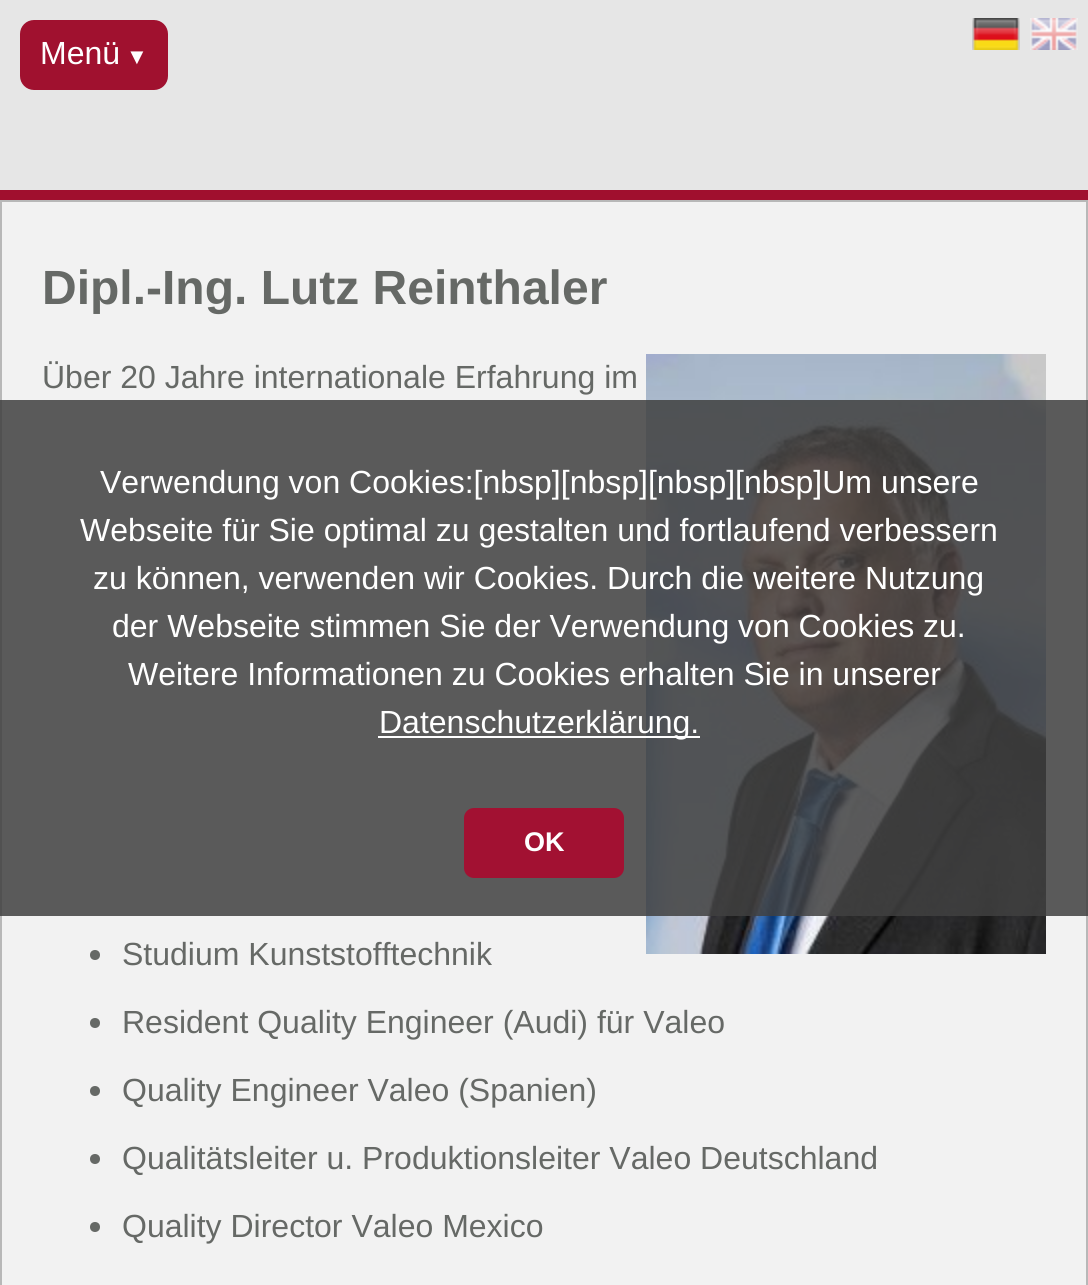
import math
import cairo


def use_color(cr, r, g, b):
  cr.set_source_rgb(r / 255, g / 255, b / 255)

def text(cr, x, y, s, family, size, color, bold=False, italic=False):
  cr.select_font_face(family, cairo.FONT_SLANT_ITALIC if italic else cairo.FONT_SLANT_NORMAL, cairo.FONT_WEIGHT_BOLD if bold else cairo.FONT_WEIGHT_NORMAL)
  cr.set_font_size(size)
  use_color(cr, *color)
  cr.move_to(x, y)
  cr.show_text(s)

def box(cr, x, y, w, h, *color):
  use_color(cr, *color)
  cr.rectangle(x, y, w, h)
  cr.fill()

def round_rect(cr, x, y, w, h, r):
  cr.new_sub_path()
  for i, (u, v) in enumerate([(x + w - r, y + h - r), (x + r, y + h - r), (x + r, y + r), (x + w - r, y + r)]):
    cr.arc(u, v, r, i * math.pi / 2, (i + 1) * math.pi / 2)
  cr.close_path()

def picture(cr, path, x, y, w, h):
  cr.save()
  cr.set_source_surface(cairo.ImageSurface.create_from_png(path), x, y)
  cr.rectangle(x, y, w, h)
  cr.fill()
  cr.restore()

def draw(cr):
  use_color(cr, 230, 230, 230)
  cr.paint()
  box(cr, 1030, 18, 48, 32, 245, 245, 245)
  box(cr, 0, 190, 1088, 10, 160, 15, 46)
  picture(cr, "img_01.png", 972, 18, 48, 32)
  picture(cr, "img_02.png", 1030, 18, 48, 32)
  use_color(cr, 160, 17, 47)
  round_rect(cr, 20, 20, 148, 70, 14)
  cr.fill()
  use_color(cr, 242, 242, 242)
  cr.rectangle(1, 201, 1086, 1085)
  cr.fill_preserve()
  use_color(cr, 184, 184, 184)
  cr.stroke()
  picture(cr, "img_03.png", 646, 354, 400, 600)
  use_color(cr, 102, 105, 102)
  cr.arc(95, 955, 5, 0, 2 * math.pi)
  cr.fill()
  cr.arc(95, 1023, 5, 0, 2 * math.pi)
  cr.fill()
  cr.arc(95, 1091, 5, 0, 2 * math.pi)
  cr.fill()
  cr.arc(95, 1159, 5, 0, 2 * math.pi)
  cr.fill()
  cr.arc(95, 1227, 5, 0, 2 * math.pi)
  cr.fill()
  cr.set_source_rgba(0.251, 0.251, 0.251, 0.85)
  cr.rectangle(0, 400, 1088, 516)
  cr.fill()
  box(cr, 378, 736, 322, 2, 255, 255, 255)
  use_color(cr, 162, 17, 50)
  round_rect(cr, 464, 808, 160, 70, 10)
  cr.fill()
  text(cr, 40, 64, "Menü", "Liberation Sans", 32, (255, 255, 255))
  text(cr, 126, 64, "▼", "Liberation Sans", 22, (255, 255, 255))
  text(cr, 42, 304, "Dipl.-Ing. Lutz Reinthaler", "Liberation Sans", 48, (102, 105, 102), bold=True)
  text(cr, 42, 388, "Über 20 Jahre internationale Erfahrung im", "Liberation Sans", 32, (102, 105, 102))
  text(cr, 122, 965, "Studium Kunststofftechnik", "Liberation Sans", 32, (102, 105, 102))
  text(cr, 122, 1033, "Resident Quality Engineer (Audi) für Valeo", "Liberation Sans", 32, (102, 105, 102))
  text(cr, 122, 1101, "Quality Engineer Valeo (Spanien)", "Liberation Sans", 32, (102, 105, 102))
  text(cr, 122, 1169, "Qualitätsleiter u. Produktionsleiter Valeo Deutschland", "Liberation Sans", 32, (102, 105, 102))
  text(cr, 122, 1237, "Quality Director Valeo Mexico", "Liberation Sans", 32, (102, 105, 102))
  text(cr, 100, 493, "Verwendung von Cookies:[nbsp][nbsp][nbsp][nbsp]Um unsere", "Liberation Sans", 32, (255, 255, 255))
  text(cr, 80, 541, "Webseite für Sie optimal zu gestalten und fortlaufend verbessern", "Liberation Sans", 32, (255, 255, 255))
  text(cr, 93, 589, "zu können, verwenden wir Cookies. Durch die weitere Nutzung", "Liberation Sans", 32, (255, 255, 255))
  text(cr, 112, 637, "der Webseite stimmen Sie der Verwendung von Cookies zu.", "Liberation Sans", 32, (255, 255, 255))
  text(cr, 128, 685, "Weitere Informationen zu Cookies erhalten Sie in unserer", "Liberation Sans", 32, (255, 255, 255))
  text(cr, 379, 733, "Datenschutzerklärung.", "Liberation Sans", 32, (255, 255, 255))
  text(cr, 524, 851, "OK", "Liberation Sans", 27, (255, 255, 255), bold=True)


surface = cairo.ImageSurface(cairo.FORMAT_RGB24, 1088, 1285)
cr = cairo.Context(surface)
options = cairo.FontOptions()
options.set_hint_metrics(cairo.HINT_METRICS_OFF)
options.set_hint_style(cairo.HINT_STYLE_NONE)
cr.set_font_options(options)
cr.set_miter_limit(4)
draw(cr)
surface.write_to_png("out.png")
